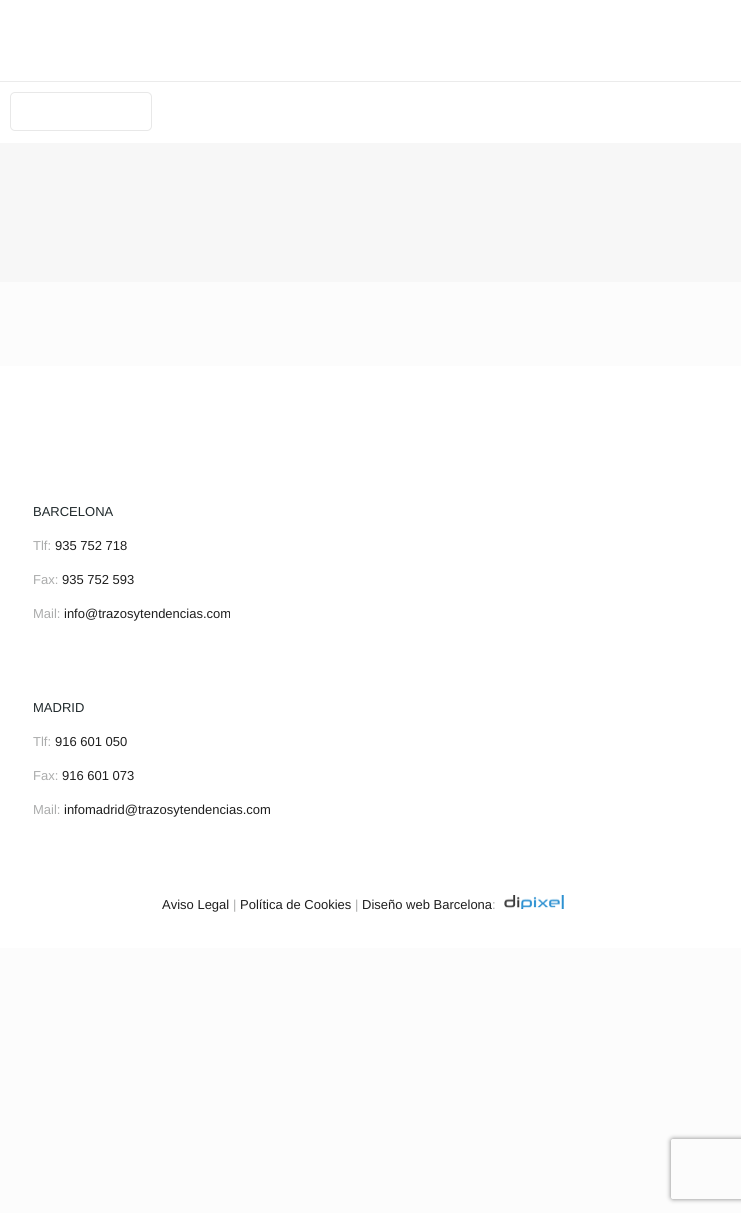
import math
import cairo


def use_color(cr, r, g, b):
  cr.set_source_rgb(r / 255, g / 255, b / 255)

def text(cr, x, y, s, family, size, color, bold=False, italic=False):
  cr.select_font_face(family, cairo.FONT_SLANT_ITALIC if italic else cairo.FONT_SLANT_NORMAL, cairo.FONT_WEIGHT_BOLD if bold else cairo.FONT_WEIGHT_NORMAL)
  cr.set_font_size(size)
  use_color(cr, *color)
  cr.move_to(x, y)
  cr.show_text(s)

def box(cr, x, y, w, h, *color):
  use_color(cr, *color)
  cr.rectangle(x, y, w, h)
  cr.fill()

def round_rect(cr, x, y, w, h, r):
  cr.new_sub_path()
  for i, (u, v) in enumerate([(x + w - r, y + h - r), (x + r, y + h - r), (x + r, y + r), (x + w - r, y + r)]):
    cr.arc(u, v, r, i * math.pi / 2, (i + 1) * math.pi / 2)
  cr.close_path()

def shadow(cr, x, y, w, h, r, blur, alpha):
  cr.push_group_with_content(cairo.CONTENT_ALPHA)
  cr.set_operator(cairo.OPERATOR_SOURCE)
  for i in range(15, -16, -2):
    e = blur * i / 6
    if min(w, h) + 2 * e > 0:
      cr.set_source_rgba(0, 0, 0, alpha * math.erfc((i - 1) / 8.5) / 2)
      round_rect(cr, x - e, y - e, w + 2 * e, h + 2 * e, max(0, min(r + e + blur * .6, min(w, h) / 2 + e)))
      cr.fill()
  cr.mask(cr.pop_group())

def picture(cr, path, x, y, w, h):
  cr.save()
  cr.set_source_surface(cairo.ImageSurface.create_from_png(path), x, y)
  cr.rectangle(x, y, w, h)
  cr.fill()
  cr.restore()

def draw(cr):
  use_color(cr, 252, 252, 252)
  cr.paint()
  box(cr, 0, 0, 741, 143, 255, 255, 255)
  box(cr, 0, 81, 741, 1, 235, 235, 235)
  round_rect(cr, 10.5, 92.5, 141, 38, 4.5)
  use_color(cr, 232, 232, 232)
  cr.set_line_width(1)
  cr.stroke()
  box(cr, 0, 143, 741, 139, 247, 247, 247)
  box(cr, 0, 366, 741, 582, 255, 255, 255)
  picture(cr, "img_01.png", 504, 895, 60, 14)
  cr.save()
  cr.set_fill_rule(cairo.FILL_RULE_EVEN_ODD)
  cr.new_path()
  cr.move_to(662, 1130)
  cr.line_to(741, 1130)
  cr.line_to(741, 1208)
  cr.line_to(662, 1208)
  cr.close_path()
  cr.move_to(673, 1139)
  cr.line_to(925, 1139)
  cr.curve_to(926, 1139, 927, 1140, 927, 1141)
  cr.line_to(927, 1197)
  cr.curve_to(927, 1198, 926, 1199, 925, 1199)
  cr.line_to(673, 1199)
  cr.curve_to(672, 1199, 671, 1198, 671, 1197)
  cr.line_to(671, 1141)
  cr.curve_to(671, 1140, 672, 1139, 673, 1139)
  cr.close_path()
  cr.clip()
  use_color(cr, 128, 128, 128)
  shadow(cr, 671, 1139, 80, 60, 2, 2.5, 1)
  cr.restore()
  text(cr, 33, 516, "BARCELONA", "Liberation Sans", 13, (32, 41, 44))
  text(cr, 33, 550, "Tlf:", "Liberation Sans", 13, (171, 172, 172))
  text(cr, 55, 550, "935 752 718", "Liberation Sans", 13, (30, 30, 30))
  text(cr, 33, 584, "Fax:", "Liberation Sans", 13, (171, 172, 172))
  text(cr, 62, 584, "935 752 593", "Liberation Sans", 13, (30, 30, 30))
  text(cr, 33, 618, "Mail:", "Liberation Sans", 13, (171, 172, 172))
  text(cr, 64, 618, "info@trazosytendencias.com", "Liberation Sans", 13, (30, 30, 30))
  text(cr, 33, 712, "MADRID", "Liberation Sans", 13, (32, 41, 44))
  text(cr, 33, 746, "Tlf:", "Liberation Sans", 13, (171, 172, 172))
  text(cr, 55, 746, "916 601 050", "Liberation Sans", 13, (30, 30, 30))
  text(cr, 33, 780, "Fax:", "Liberation Sans", 13, (171, 172, 172))
  text(cr, 62, 780, "916 601 073", "Liberation Sans", 13, (30, 30, 30))
  text(cr, 33, 814, "Mail:", "Liberation Sans", 13, (171, 172, 172))
  text(cr, 64, 814, "infomadrid@trazosytendencias.com", "Liberation Sans", 13, (30, 30, 30))
  text(cr, 162, 909, "Aviso Legal", "Liberation Sans", 13, (30, 30, 30))
  text(cr, 233, 909, "|", "Liberation Sans", 13, (171, 172, 172))
  text(cr, 240, 909, "Política de Cookies", "Liberation Sans", 13, (30, 30, 30))
  text(cr, 355, 909, "|", "Liberation Sans", 13, (171, 172, 172))
  text(cr, 362, 909, "Diseño web Barcelona", "Liberation Sans", 13, (30, 30, 30))
  text(cr, 492, 909, ":", "Liberation Sans", 13, (171, 172, 172))


surface = cairo.ImageSurface(cairo.FORMAT_RGB24, 741, 1213)
cr = cairo.Context(surface)
options = cairo.FontOptions()
options.set_hint_metrics(cairo.HINT_METRICS_OFF)
options.set_hint_style(cairo.HINT_STYLE_NONE)
cr.set_font_options(options)
cr.set_miter_limit(4)
draw(cr)
surface.write_to_png("out.png")
